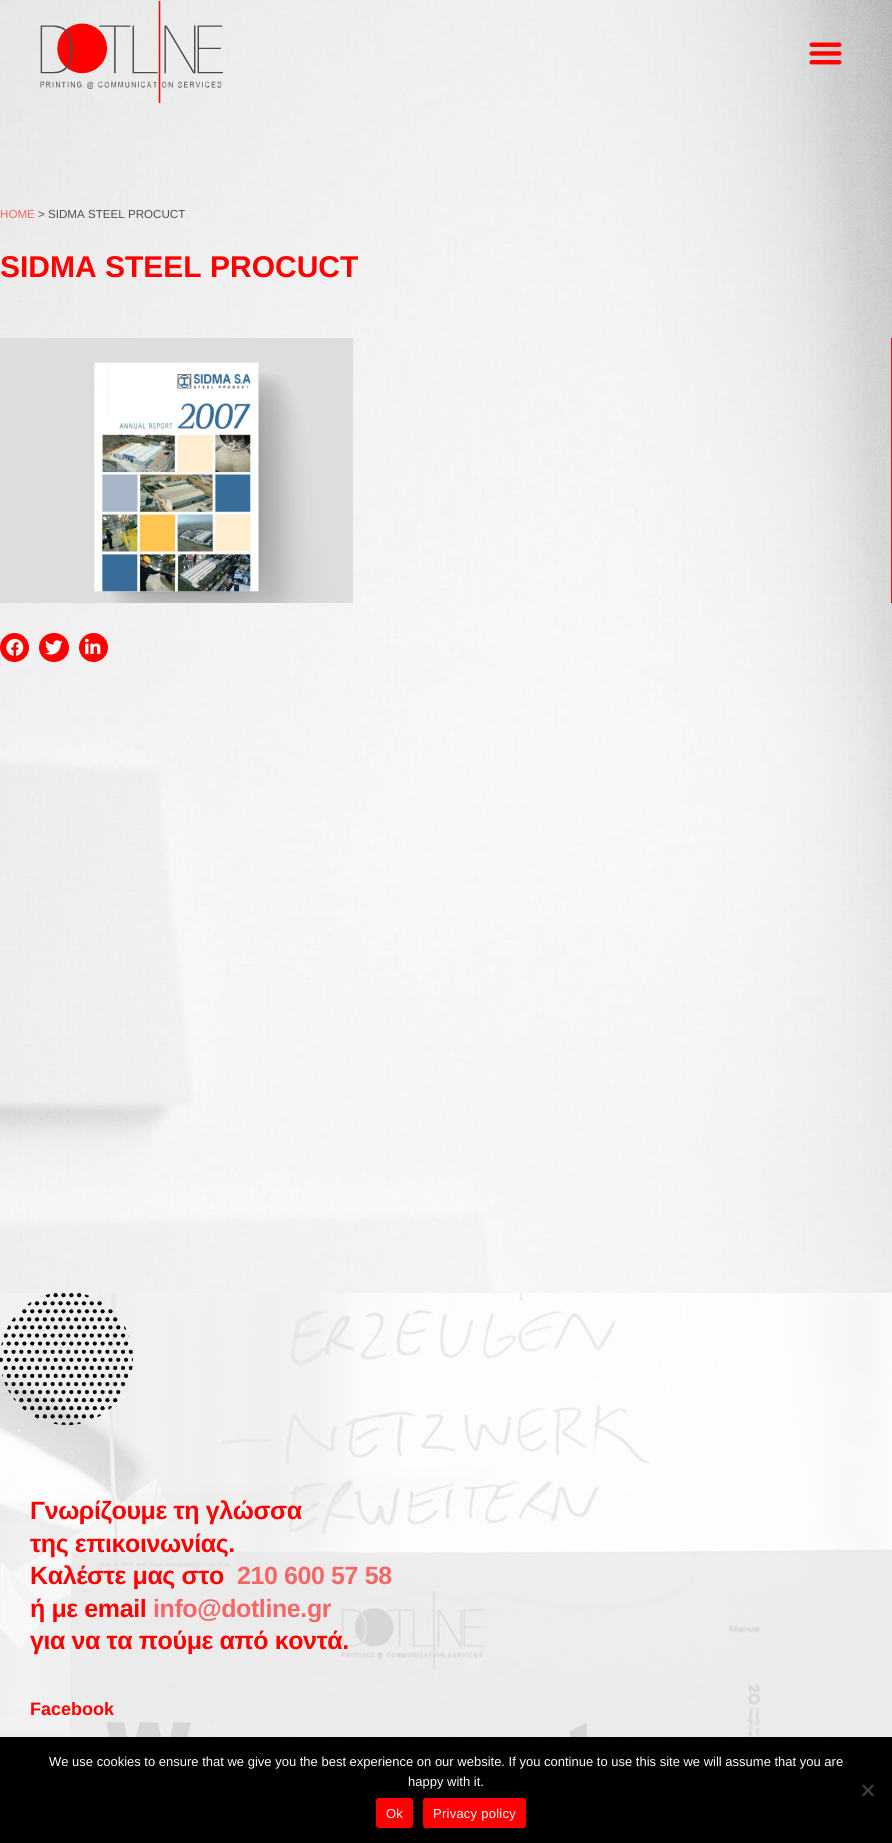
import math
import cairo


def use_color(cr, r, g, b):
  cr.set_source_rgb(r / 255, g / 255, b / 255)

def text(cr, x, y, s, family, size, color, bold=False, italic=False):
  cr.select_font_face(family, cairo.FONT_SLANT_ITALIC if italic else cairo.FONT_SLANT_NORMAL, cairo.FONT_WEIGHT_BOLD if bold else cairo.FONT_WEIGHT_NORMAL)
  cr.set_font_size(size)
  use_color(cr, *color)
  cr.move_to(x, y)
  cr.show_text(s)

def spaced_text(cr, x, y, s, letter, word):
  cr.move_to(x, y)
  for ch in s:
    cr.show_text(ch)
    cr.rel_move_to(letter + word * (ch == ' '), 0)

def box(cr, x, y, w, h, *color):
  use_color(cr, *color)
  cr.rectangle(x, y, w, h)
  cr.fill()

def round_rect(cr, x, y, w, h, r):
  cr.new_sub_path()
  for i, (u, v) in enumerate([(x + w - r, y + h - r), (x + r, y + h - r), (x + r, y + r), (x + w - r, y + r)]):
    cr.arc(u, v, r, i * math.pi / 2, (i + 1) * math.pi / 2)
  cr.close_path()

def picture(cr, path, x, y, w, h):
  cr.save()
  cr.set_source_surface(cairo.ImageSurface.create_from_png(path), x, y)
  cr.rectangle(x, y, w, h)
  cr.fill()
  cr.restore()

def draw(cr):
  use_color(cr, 255, 255, 255)
  cr.paint()
  picture(cr, "img_01.png", 0, 0, 892, 1293)
  picture(cr, "img_02.png", 40, 1, 183, 102)
  picture(cr, "img_03.png", 809, 42, 33, 23)
  picture(cr, "img_04.png", 0, 338, 353, 265)
  box(cr, 891, 338, 1, 265, 255, 0, 0)
  cr.arc(14.5, 647.5, 14.5, 0, 2 * math.pi)
  cr.fill()
  picture(cr, "img_05.png", 6, 638, 18, 18)
  round_rect(cr, 39, 633, 30, 29, 14.5)
  cr.fill()
  picture(cr, "img_06.png", 45, 640, 18, 15)
  cr.arc(93.5, 647.5, 14.5, 0, 2 * math.pi)
  cr.fill()
  picture(cr, "img_07.png", 85, 638, 16, 16)
  picture(cr, "img_08.png", 0, 1293, 892, 444)
  picture(cr, "img_09.png", 0, 1293, 133, 132)
  box(cr, 0, 1737, 892, 106, 0, 0, 0)
  use_color(cr, 64, 64, 64)
  cr.new_path()
  cr.move_to(872.5, 1784.5)
  cr.line_to(874, 1786)
  cr.line_to(863.5, 1796.5)
  cr.line_to(862, 1795)
  cr.close_path()
  cr.fill()
  cr.new_path()
  cr.move_to(862, 1786)
  cr.line_to(863.5, 1784.5)
  cr.line_to(874, 1795)
  cr.line_to(872.5, 1796.5)
  cr.close_path()
  cr.fill()
  use_color(cr, 255, 0, 0)
  round_rect(cr, 376, 1798, 37, 30, 3)
  cr.fill()
  round_rect(cr, 423, 1798, 103, 30, 3)
  cr.fill()
  text(cr, 0, 218, "HOME", "Liberation Sans", 11.6, (246, 103, 103))
  text(cr, 38, 218, "> SIDMA STEEL PROCUCT", "Liberation Sans", 11.6, (75, 79, 88))
  text(cr, 0, 277, "SIDMA STEEL PROCUCT", "Liberation Sans", 30, (255, 0, 0), bold=True)
  cr.set_font_size(25)
  spaced_text(cr, 30, 1519, "Γνωρίζουμε τη γλώσσα", -0.4, 0)
  spaced_text(cr, 30, 1552, "της επικοινωνίας.", -0.4, 0)
  spaced_text(cr, 30, 1584, "Καλέστε μας στο", -0.4, 0)
  use_color(cr, 246, 103, 103)
  spaced_text(cr, 237, 1584, "210 600 57 58", -0.4, 0)
  use_color(cr, 255, 0, 0)
  spaced_text(cr, 30, 1617, "ή με email", -0.4, 0)
  use_color(cr, 246, 103, 103)
  spaced_text(cr, 153, 1617, "info@dotline.gr", -0.4, 0)
  use_color(cr, 255, 0, 0)
  spaced_text(cr, 30, 1649, "για να τα πούμε από κοντά.", -0.4, 0)
  text(cr, 30, 1715, "Facebook", "Liberation Sans", 18, (255, 0, 0), bold=True)
  text(cr, 49, 1766, "We use cookies to ensure that we give you the best experience on our website. If you continue to use this site we will assume that you are", "Liberation Sans", 13, (255, 255, 255))
  text(cr, 408, 1786, "happy with it.", "Liberation Sans", 13, (255, 255, 255))
  spaced_text(cr, 386, 1818, "Ok", 0.25, 0)
  spaced_text(cr, 433, 1818, "Privacy policy", 0.25, 0)


surface = cairo.ImageSurface(cairo.FORMAT_RGB24, 892, 1843)
cr = cairo.Context(surface)
options = cairo.FontOptions()
options.set_hint_metrics(cairo.HINT_METRICS_OFF)
options.set_hint_style(cairo.HINT_STYLE_NONE)
cr.set_font_options(options)
cr.set_miter_limit(4)
draw(cr)
surface.write_to_png("out.png")
